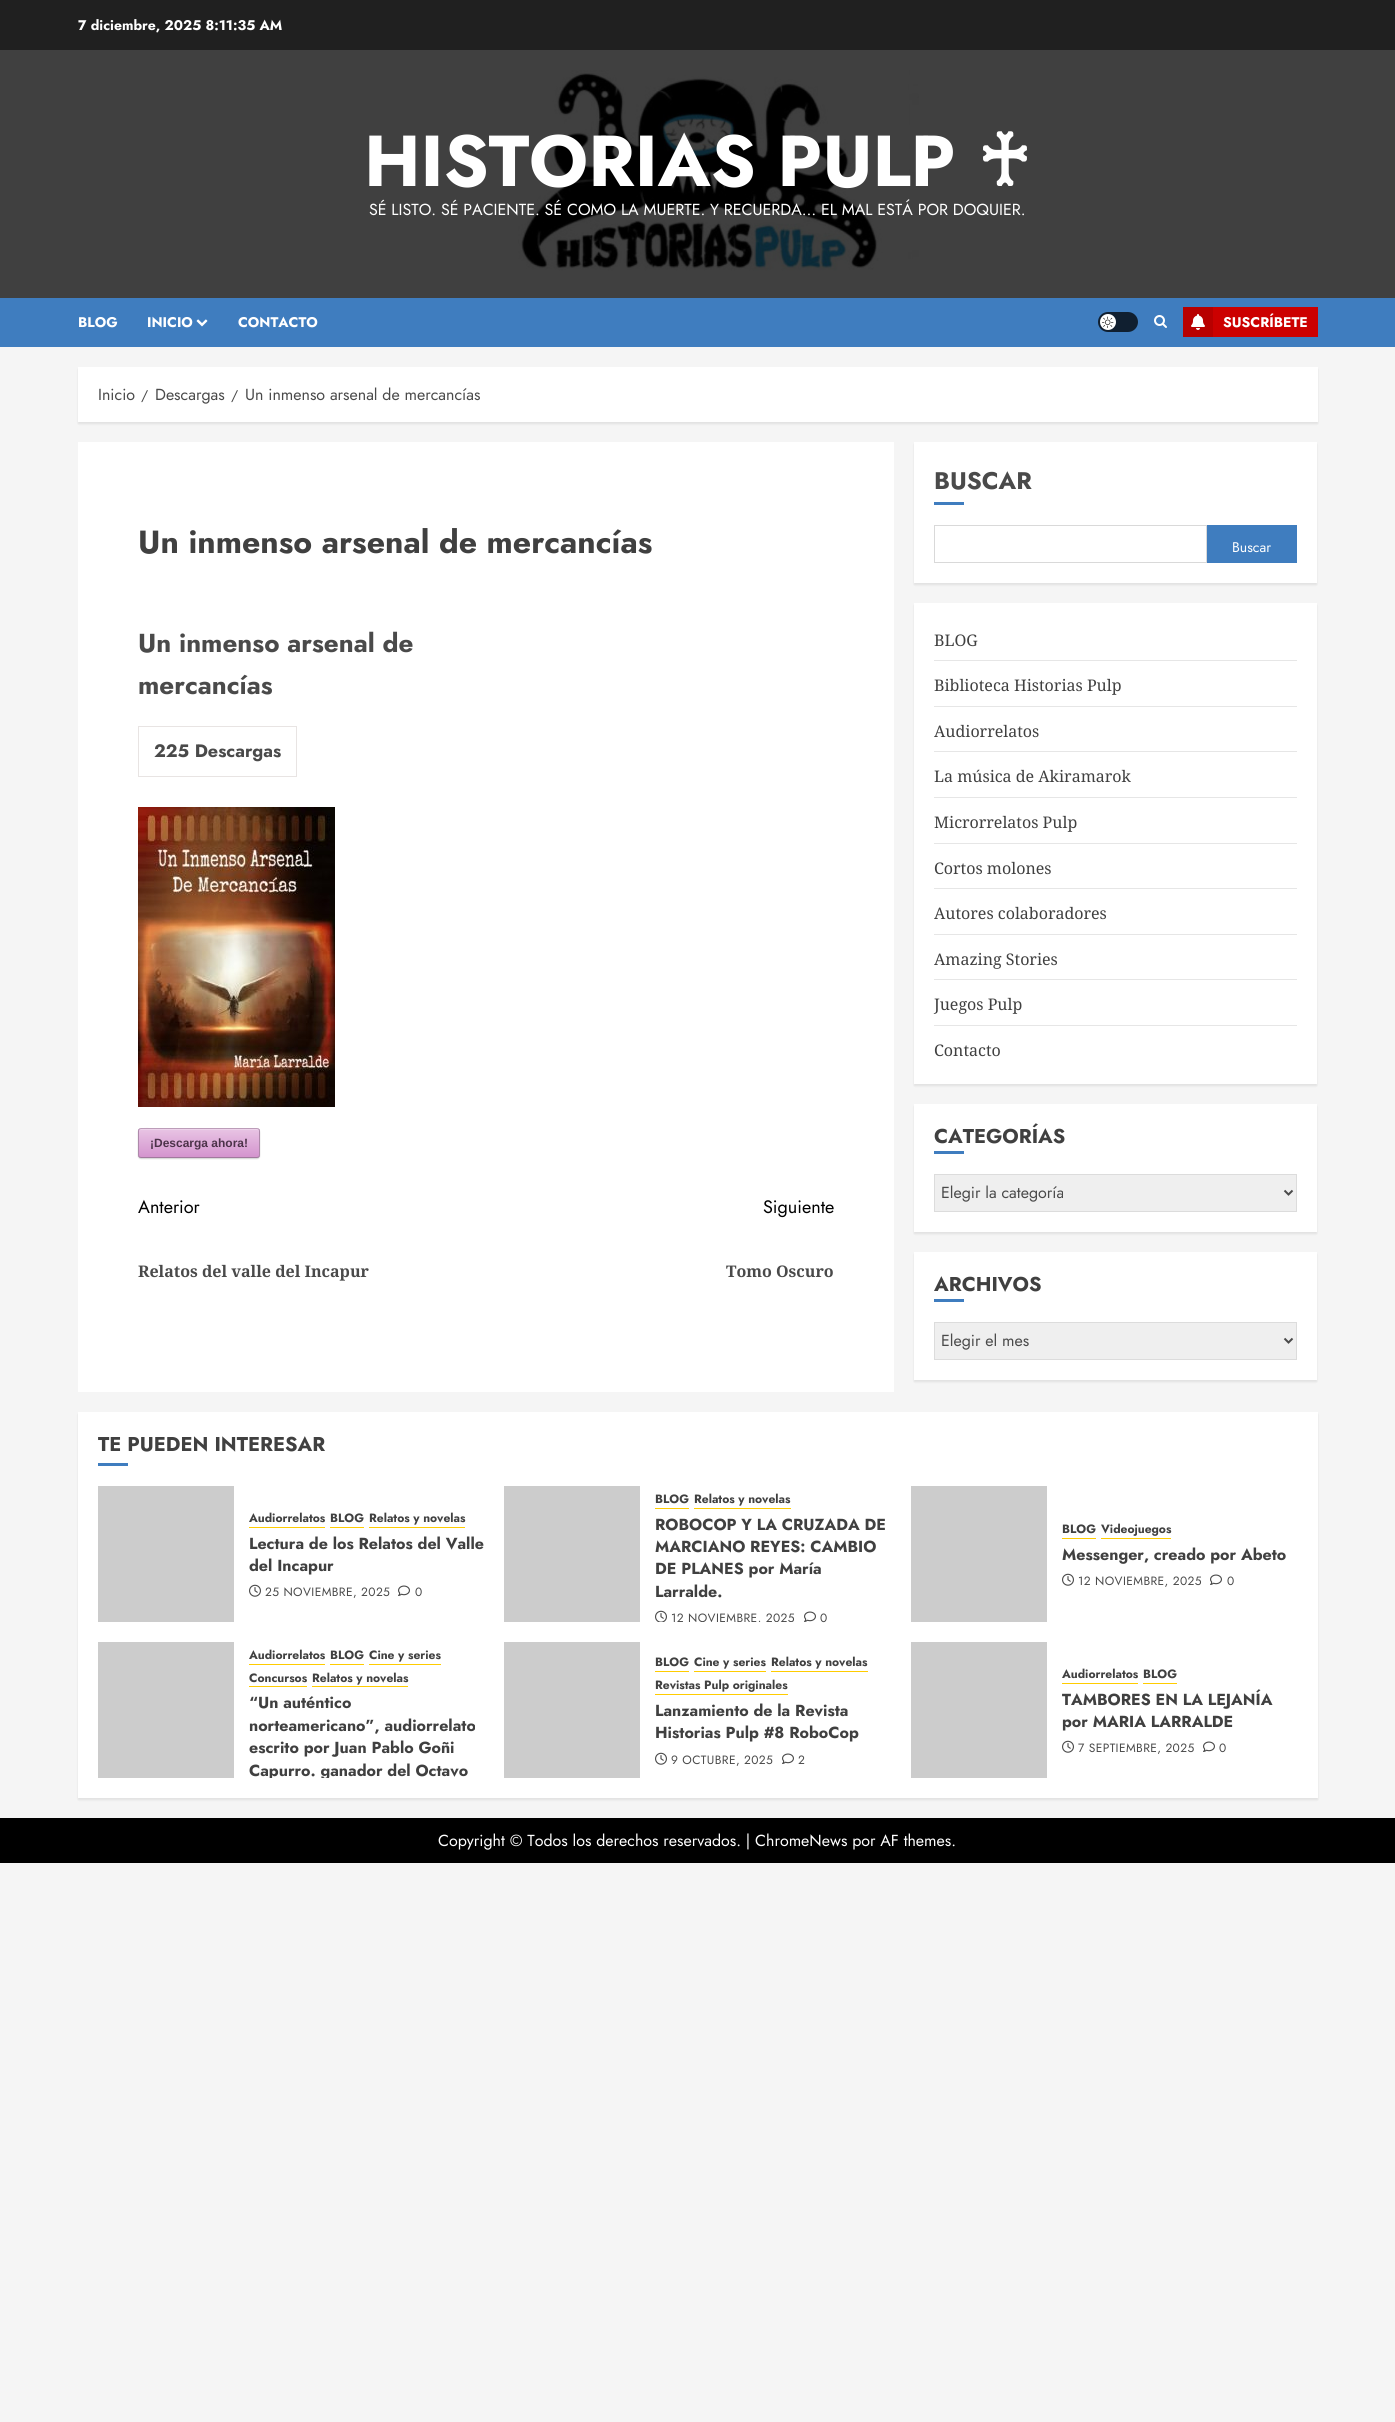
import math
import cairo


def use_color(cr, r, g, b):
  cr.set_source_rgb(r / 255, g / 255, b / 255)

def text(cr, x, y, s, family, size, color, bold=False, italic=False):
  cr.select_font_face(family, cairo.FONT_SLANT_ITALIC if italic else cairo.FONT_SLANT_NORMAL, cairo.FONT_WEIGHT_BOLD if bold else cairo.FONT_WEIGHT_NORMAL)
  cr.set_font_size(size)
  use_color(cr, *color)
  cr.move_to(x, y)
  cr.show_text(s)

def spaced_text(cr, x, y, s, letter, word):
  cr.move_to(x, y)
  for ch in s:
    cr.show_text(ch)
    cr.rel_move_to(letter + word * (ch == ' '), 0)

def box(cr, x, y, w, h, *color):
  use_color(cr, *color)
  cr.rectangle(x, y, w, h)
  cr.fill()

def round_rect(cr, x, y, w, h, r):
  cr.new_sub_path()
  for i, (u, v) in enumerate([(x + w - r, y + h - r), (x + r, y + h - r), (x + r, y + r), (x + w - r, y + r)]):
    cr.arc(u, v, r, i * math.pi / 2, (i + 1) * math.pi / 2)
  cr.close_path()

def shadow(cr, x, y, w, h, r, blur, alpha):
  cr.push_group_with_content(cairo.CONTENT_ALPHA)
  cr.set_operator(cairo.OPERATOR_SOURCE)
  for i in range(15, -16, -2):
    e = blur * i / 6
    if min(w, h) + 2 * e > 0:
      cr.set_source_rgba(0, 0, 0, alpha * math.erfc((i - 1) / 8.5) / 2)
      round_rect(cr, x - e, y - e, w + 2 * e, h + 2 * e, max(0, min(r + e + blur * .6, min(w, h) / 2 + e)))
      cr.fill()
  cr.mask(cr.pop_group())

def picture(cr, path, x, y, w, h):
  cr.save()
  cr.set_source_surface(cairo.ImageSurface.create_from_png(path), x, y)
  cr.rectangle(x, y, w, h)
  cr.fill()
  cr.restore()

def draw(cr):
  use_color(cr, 245, 245, 245)
  cr.paint()
  box(cr, 0, 0, 1395, 50, 32, 32, 32)
  box(cr, 0, 50, 1395, 248, 64, 64, 64)
  picture(cr, "img_01.png", 518, 70, 401, 201)
  box(cr, 0, 298, 1395, 49, 63, 125, 191)
  picture(cr, "img_02.png", 196, 319, 12, 8)
  use_color(cr, 16, 31, 48)
  round_rect(cr, 1098, 312, 40, 20, 10)
  cr.fill()
  use_color(cr, 255, 255, 255)
  cr.arc(1108, 322, 8, 0, 2 * math.pi)
  cr.fill()
  picture(cr, "img_03.png", 1102, 316, 12, 12)
  picture(cr, "img_04.png", 1154, 315, 13, 13)
  box(cr, 1213, 307, 105, 30, 204, 0, 0)
  box(cr, 1183, 307, 30, 30, 184, 0, 0)
  picture(cr, "img_05.png", 1191, 314, 14, 16)
  use_color(cr, 0, 0, 0)
  shadow(cr, 78, 369, 1240, 55, 0, 1, 0.08)
  box(cr, 78, 367, 1240, 55, 255, 255, 255)
  box(cr, 78, 442, 816, 950, 255, 255, 255)
  cr.rectangle(138.5, 726.5, 158, 50)
  use_color(cr, 232, 228, 227)
  cr.set_line_width(1)
  cr.stroke()
  picture(cr, "img_06.png", 138, 807, 197, 300)
  use_color(cr, 213, 213, 213)
  shadow(cr, 138, 1129, 122, 30, 3, 0.5, 1)
  cr.save()
  round_rect(cr, 138, 1128, 122, 30, 3)
  cr.clip()
  gradient = cairo.LinearGradient(139, 1129, 139, 1157)
  gradient.add_color_stop_rgba(0, 0.91, 0.769, 0.894, 1)
  gradient.add_color_stop_rgba(1, 0.831, 0.58, 0.808, 1)
  cr.set_source(gradient)
  cr.rectangle(138, 1129, 122, 28)
  cr.fill()
  cr.restore()
  use_color(cr, 238, 211, 235)
  cr.new_path()
  cr.move_to(141, 1130)
  cr.line_to(257, 1130)
  cr.curve_to(258, 1130, 259, 1131, 259, 1132)
  cr.curve_to(259, 1131, 259, 1130, 258, 1129)
  cr.line_to(160, 1129)
  cr.curve_to(154, 1129, 139, 1125, 139, 1132)
  cr.curve_to(139, 1131, 140, 1130, 141, 1130)
  cr.close_path()
  cr.fill()
  cr.new_path()
  cr.move_to(139, 1129)
  cr.line_to(141, 1128.5)
  cr.line_to(257, 1128.5)
  cr.line_to(259, 1129)
  use_color(cr, 188, 157, 185)
  cr.stroke()
  cr.new_path()
  cr.move_to(259, 1129)
  cr.curve_to(259, 1129.5, 259.5, 1130.5, 259.5, 1131)
  cr.line_to(259.5, 1155)
  cr.curve_to(259.5, 1155.5, 259, 1156.5, 259, 1157)
  use_color(cr, 173, 137, 170)
  cr.stroke()
  cr.new_path()
  cr.move_to(259, 1157)
  cr.line_to(257, 1157.5)
  cr.line_to(160.5, 1157.5)
  cr.line_to(141, 1157.5)
  cr.line_to(139, 1157)
  use_color(cr, 161, 121, 157)
  cr.stroke()
  cr.new_path()
  cr.move_to(139, 1157)
  cr.curve_to(139, 1156.5, 138.5, 1155.5, 138.5, 1155)
  cr.line_to(138.5, 1131)
  cr.curve_to(138.5, 1130.5, 139, 1129.5, 139, 1129)
  use_color(cr, 173, 137, 170)
  cr.stroke()
  use_color(cr, 0, 0, 0)
  shadow(cr, 914, 444, 403, 141, 0, 1, 0.08)
  box(cr, 914, 442, 403, 141, 255, 255, 255)
  box(cr, 934, 502, 30, 3, 63, 125, 191)
  cr.rectangle(934.5, 525.5, 272, 37)
  use_color(cr, 217, 217, 217)
  cr.stroke()
  box(cr, 1207, 525, 90, 38, 63, 125, 191)
  use_color(cr, 0, 0, 0)
  shadow(cr, 914, 605, 403, 481, 0, 1, 0.08)
  box(cr, 914, 603, 403, 481, 255, 255, 255)
  box(cr, 934, 660, 363, 1, 230, 230, 230)
  box(cr, 934, 706, 363, 1, 230, 230, 230)
  box(cr, 934, 751, 363, 1, 230, 230, 230)
  box(cr, 934, 797, 363, 1, 230, 230, 230)
  box(cr, 934, 843, 363, 1, 230, 230, 230)
  box(cr, 934, 888, 363, 1, 230, 230, 230)
  box(cr, 934, 934, 363, 1, 230, 230, 230)
  box(cr, 934, 979, 363, 1, 230, 230, 230)
  box(cr, 934, 1025, 363, 1, 230, 230, 230)
  use_color(cr, 0, 0, 0)
  shadow(cr, 914, 1106, 403, 128, 0, 1, 0.08)
  box(cr, 914, 1104, 403, 128, 255, 255, 255)
  box(cr, 934, 1151, 30, 3, 63, 125, 191)
  use_color(cr, 239, 239, 239)
  cr.rectangle(934.5, 1174.5, 362, 37)
  cr.fill_preserve()
  use_color(cr, 220, 220, 220)
  cr.stroke()
  cr.new_path()
  cr.move_to(1284.5, 1190.5)
  cr.line_to(1288.5, 1194.5)
  cr.line_to(1292.5, 1190.5)
  use_color(cr, 74, 74, 74)
  cr.set_line_width(2)
  cr.stroke()
  use_color(cr, 0, 0, 0)
  shadow(cr, 914, 1254, 403, 128, 0, 1, 0.08)
  box(cr, 914, 1252, 403, 128, 255, 255, 255)
  box(cr, 934, 1299, 30, 3, 63, 125, 191)
  use_color(cr, 239, 239, 239)
  cr.rectangle(934.5, 1322.5, 362, 37)
  cr.fill_preserve()
  use_color(cr, 220, 220, 220)
  cr.set_line_width(1)
  cr.stroke()
  cr.new_path()
  cr.move_to(1284.5, 1338.5)
  cr.line_to(1288.5, 1342.5)
  cr.line_to(1292.5, 1338.5)
  use_color(cr, 74, 74, 74)
  cr.set_line_width(2)
  cr.stroke()
  use_color(cr, 0, 0, 0)
  shadow(cr, 78, 1414, 1240, 386, 0, 1, 0.08)
  box(cr, 78, 1412, 1240, 386, 255, 255, 255)
  box(cr, 98, 1463, 30, 3, 63, 125, 191)
  box(cr, 98, 1486, 136, 136, 204, 204, 204)
  box(cr, 249, 1527, 76, 1, 255, 204, 0)
  box(cr, 330, 1527, 34, 1, 255, 204, 0)
  box(cr, 369, 1527, 96, 1, 255, 204, 0)
  picture(cr, "img_07.png", 249, 1584, 12, 13)
  picture(cr, "img_08.png", 398, 1585, 12, 11)
  box(cr, 504, 1486, 136, 136, 204, 204, 204)
  box(cr, 655, 1508, 34, 1, 255, 204, 0)
  box(cr, 694, 1508, 97, 1, 255, 204, 0)
  picture(cr, "img_09.png", 655, 1610, 12, 12)
  picture(cr, "img_08.png", 804, 1611, 12, 11)
  box(cr, 911, 1486, 136, 136, 204, 204, 204)
  box(cr, 1062, 1538, 34, 1, 255, 204, 0)
  box(cr, 1101, 1538, 70, 1, 255, 204, 0)
  picture(cr, "img_07.png", 1062, 1573, 12, 13)
  picture(cr, "img_08.png", 1210, 1574, 12, 11)
  box(cr, 98, 1642, 136, 136, 204, 204, 204)
  box(cr, 249, 1664, 76, 1, 255, 204, 0)
  box(cr, 330, 1664, 34, 1, 255, 204, 0)
  box(cr, 369, 1664, 72, 1, 255, 204, 0)
  box(cr, 249, 1686, 58, 1, 255, 204, 0)
  box(cr, 312, 1686, 96, 1, 255, 204, 0)
  box(cr, 504, 1642, 136, 136, 204, 204, 204)
  box(cr, 655, 1671, 34, 1, 255, 204, 0)
  box(cr, 694, 1671, 72, 1, 255, 204, 0)
  box(cr, 771, 1671, 97, 1, 255, 204, 0)
  box(cr, 655, 1694, 133, 1, 255, 204, 0)
  picture(cr, "img_07.png", 655, 1752, 12, 13)
  picture(cr, "img_08.png", 782, 1753, 12, 11)
  box(cr, 911, 1642, 136, 136, 204, 204, 204)
  box(cr, 1062, 1683, 76, 1, 255, 204, 0)
  box(cr, 1143, 1683, 34, 1, 255, 204, 0)
  picture(cr, "img_07.png", 1062, 1740, 12, 13)
  picture(cr, "img_08.png", 1203, 1741, 12, 11)
  box(cr, 0, 1818, 1395, 45, 0, 0, 0)
  text(cr, 78, 30, "7 diciembre, 2025 8:11:35 AM", "Jost", 14, (255, 255, 255), bold=True)
  text(cr, 364, 186, "HISTORIAS PULP", "Jost", 72, (255, 255, 255), bold=True)
  text(cr, 977, 186, "♰", "DejaVu Sans", 72, (255, 255, 255), bold=True)
  text(cr, 369, 215, "SÉ LISTO. SÉ PACIENTE. SÉ COMO LA MUERTE. Y RECUERDA… EL MAL ESTÁ POR DOQUIER.", "Jost", 16, (255, 255, 255))
  text(cr, 78, 327, "BLOG", "Jost", 14, (255, 255, 255), bold=True)
  text(cr, 147, 327, "INICIO", "Jost", 14, (255, 255, 255), bold=True)
  text(cr, 238, 327, "CONTACTO", "Jost", 14, (255, 255, 255), bold=True)
  text(cr, 1223, 327, "SUSCRÍBETE", "Jost", 14, (255, 255, 255), bold=True)
  text(cr, 98, 400, "Inicio", "Jost", 16, (74, 74, 74))
  text(cr, 141, 400, "/", "Jost", 14, (74, 74, 74))
  text(cr, 155, 400, "Descargas", "Jost", 16, (74, 74, 74))
  text(cr, 231, 400, "/", "Jost", 14, (74, 74, 74))
  text(cr, 245, 400, "Un inmenso arsenal de mercancías", "Jost", 16, (74, 74, 74))
  text(cr, 138, 553, "Un inmenso arsenal de mercancías", "Jost", 32, (64, 64, 64), bold=True)
  text(cr, 138, 652, "Un inmenso arsenal de", "Jost", 26, (74, 74, 74), bold=True)
  text(cr, 138, 694, "mercancías", "Jost", 26, (74, 74, 74), bold=True)
  text(cr, 154, 757, "225 Descargas", "Jost", 18, (74, 74, 74), bold=True)
  text(cr, 150, 1147, "¡Descarga ahora!", "Liberation Sans", 12, (77, 51, 74), bold=True)
  text(cr, 138, 1213, "Anterior", "Jost", 18, (0, 0, 0))
  text(cr, 138, 1277, "Relatos del valle del Incapur", "Noto Serif", 16, (74, 74, 74), bold=True)
  text(cr, 763, 1213, "Siguiente", "Jost", 18, (0, 0, 0))
  text(cr, 726, 1277, "Tomo Oscuro", "Noto Serif", 16, (74, 74, 74), bold=True)
  text(cr, 934, 489, "BUSCAR", "Jost", 24, (74, 74, 74), bold=True)
  text(cr, 1232, 552, "Buscar", "Jost", 14, (255, 255, 255))
  text(cr, 934, 646, "BLOG", "Noto Serif", 16, (64, 64, 64))
  text(cr, 934, 691, "Biblioteca Historias Pulp", "Noto Serif", 16, (64, 64, 64))
  text(cr, 934, 737, "Audiorrelatos", "Noto Serif", 16, (64, 64, 64))
  text(cr, 934, 782, "La música de Akiramarok", "Noto Serif", 16, (64, 64, 64))
  text(cr, 934, 828, "Microrrelatos Pulp", "Noto Serif", 16, (64, 64, 64))
  text(cr, 934, 874, "Cortos molones", "Noto Serif", 16, (64, 64, 64))
  text(cr, 934, 919, "Autores colaboradores", "Noto Serif", 16, (64, 64, 64))
  text(cr, 934, 965, "Amazing Stories", "Noto Serif", 16, (64, 64, 64))
  text(cr, 934, 1010, "Juegos Pulp", "Noto Serif", 16, (64, 64, 64))
  text(cr, 934, 1056, "Contacto", "Noto Serif", 16, (64, 64, 64))
  text(cr, 934, 1143, "CATEGORÍAS", "Jost", 20, (64, 64, 64), bold=True)
  text(cr, 941, 1198, "Elegir la categoría", "Jost", 16, (74, 74, 74))
  text(cr, 934, 1291, "ARCHIVOS", "Jost", 20, (64, 64, 64), bold=True)
  text(cr, 941, 1346, "Elegir el mes", "Jost", 16, (74, 74, 74))
  text(cr, 98, 1451, "TE PUEDEN INTERESAR", "Jost", 20, (64, 64, 64), bold=True)
  text(cr, 249, 1522, "Audiorrelatos", "Jost", 12, (64, 64, 64), bold=True)
  text(cr, 330, 1522, "BLOG", "Jost", 12, (64, 64, 64), bold=True)
  text(cr, 369, 1522, "Relatos y novelas", "Jost", 12, (64, 64, 64), bold=True)
  text(cr, 249, 1549, "Lectura de los Relatos del Valle", "Jost", 16, (64, 64, 64), bold=True)
  text(cr, 249, 1571, "del Incapur", "Jost", 16, (64, 64, 64), bold=True)
  cr.select_font_face("Jost")
  cr.set_font_size(12)
  use_color(cr, 74, 74, 74)
  spaced_text(cr, 265, 1596, "25 NOVIEMBRE, 2025", 0.4, 0)
  spaced_text(cr, 415, 1596, "0", 0.4, 0)
  text(cr, 655, 1503, "BLOG", "Jost", 12, (64, 64, 64), bold=True)
  text(cr, 694, 1503, "Relatos y novelas", "Jost", 12, (64, 64, 64), bold=True)
  text(cr, 655, 1530, "ROBOCOP Y LA CRUZADA DE", "Jost", 16, (64, 64, 64), bold=True)
  text(cr, 655, 1552, "MARCIANO REYES: CAMBIO", "Jost", 16, (64, 64, 64), bold=True)
  text(cr, 655, 1574, "DE PLANES por María", "Jost", 16, (64, 64, 64), bold=True)
  text(cr, 655, 1597, "Larralde.", "Jost", 16, (64, 64, 64), bold=True)
  cr.save()
  cr.rectangle(640, 1486, 251, 136)
  cr.clip()
  cr.select_font_face("Jost")
  cr.set_font_size(12)
  use_color(cr, 74, 74, 74)
  spaced_text(cr, 671, 1622, "12 NOVIEMBRE, 2025", 0.4, 0)
  cr.restore()
  cr.select_font_face("Jost")
  cr.set_font_size(12)
  use_color(cr, 74, 74, 74)
  spaced_text(cr, 820, 1622, "0", 0.4, 0)
  text(cr, 1062, 1533, "BLOG", "Jost", 12, (64, 64, 64), bold=True)
  text(cr, 1101, 1533, "Videojuegos", "Jost", 12, (64, 64, 64), bold=True)
  text(cr, 1062, 1560, "Messenger, creado por Abeto", "Jost", 16, (64, 64, 64), bold=True)
  cr.select_font_face("Jost")
  cr.set_font_size(12)
  use_color(cr, 74, 74, 74)
  spaced_text(cr, 1078, 1585, "12 NOVIEMBRE, 2025", 0.4, 0)
  spaced_text(cr, 1227, 1585, "0", 0.4, 0)
  text(cr, 249, 1659, "Audiorrelatos", "Jost", 12, (64, 64, 64), bold=True)
  text(cr, 330, 1659, "BLOG", "Jost", 12, (64, 64, 64), bold=True)
  text(cr, 369, 1659, "Cine y series", "Jost", 12, (64, 64, 64), bold=True)
  text(cr, 249, 1682, "Concursos", "Jost", 12, (64, 64, 64), bold=True)
  text(cr, 312, 1682, "Relatos y novelas", "Jost", 12, (64, 64, 64), bold=True)
  text(cr, 249, 1708, "“Un auténtico", "Jost", 16, (64, 64, 64), bold=True)
  text(cr, 249, 1731, "norteamericano”, audiorrelato", "Jost", 16, (64, 64, 64), bold=True)
  text(cr, 249, 1753, "escrito por Juan Pablo Goñi", "Jost", 16, (64, 64, 64), bold=True)
  cr.save()
  cr.rectangle(234, 1642, 250, 136)
  cr.clip()
  text(cr, 249, 1776, "Capurro. ganador del Octavo", "Jost", 16, (64, 64, 64), bold=True)
  cr.restore()
  text(cr, 655, 1666, "BLOG", "Jost", 12, (64, 64, 64), bold=True)
  text(cr, 694, 1666, "Cine y series", "Jost", 12, (64, 64, 64), bold=True)
  text(cr, 771, 1666, "Relatos y novelas", "Jost", 12, (64, 64, 64), bold=True)
  text(cr, 655, 1689, "Revistas Pulp originales", "Jost", 12, (64, 64, 64), bold=True)
  text(cr, 655, 1716, "Lanzamiento de la Revista", "Jost", 16, (64, 64, 64), bold=True)
  text(cr, 655, 1738, "Historias Pulp #8 RoboCop", "Jost", 16, (64, 64, 64), bold=True)
  cr.select_font_face("Jost")
  cr.set_font_size(12)
  use_color(cr, 74, 74, 74)
  spaced_text(cr, 671, 1764, "9 OCTUBRE, 2025", 0.4, 0)
  spaced_text(cr, 798, 1764, "2", 0.4, 0)
  text(cr, 1062, 1678, "Audiorrelatos", "Jost", 12, (64, 64, 64), bold=True)
  text(cr, 1143, 1678, "BLOG", "Jost", 12, (64, 64, 64), bold=True)
  text(cr, 1062, 1705, "TAMBORES EN LA LEJANÍA", "Jost", 16, (64, 64, 64), bold=True)
  text(cr, 1062, 1727, "por MARIA LARRALDE", "Jost", 16, (64, 64, 64), bold=True)
  cr.select_font_face("Jost")
  cr.set_font_size(12)
  use_color(cr, 74, 74, 74)
  spaced_text(cr, 1078, 1752, "7 SEPTIEMBRE, 2025", 0.4, 0)
  spaced_text(cr, 1219, 1752, "0", 0.4, 0)
  text(cr, 438, 1846, "Copyright © Todos los derechos reservados. | ChromeNews por AF themes.", "Jost", 16, (255, 255, 255))


surface = cairo.ImageSurface(cairo.FORMAT_RGB24, 1395, 2422)
cr = cairo.Context(surface)
options = cairo.FontOptions()
options.set_hint_metrics(cairo.HINT_METRICS_OFF)
options.set_hint_style(cairo.HINT_STYLE_NONE)
cr.set_font_options(options)
cr.set_miter_limit(4)
draw(cr)
surface.write_to_png("out.png")
